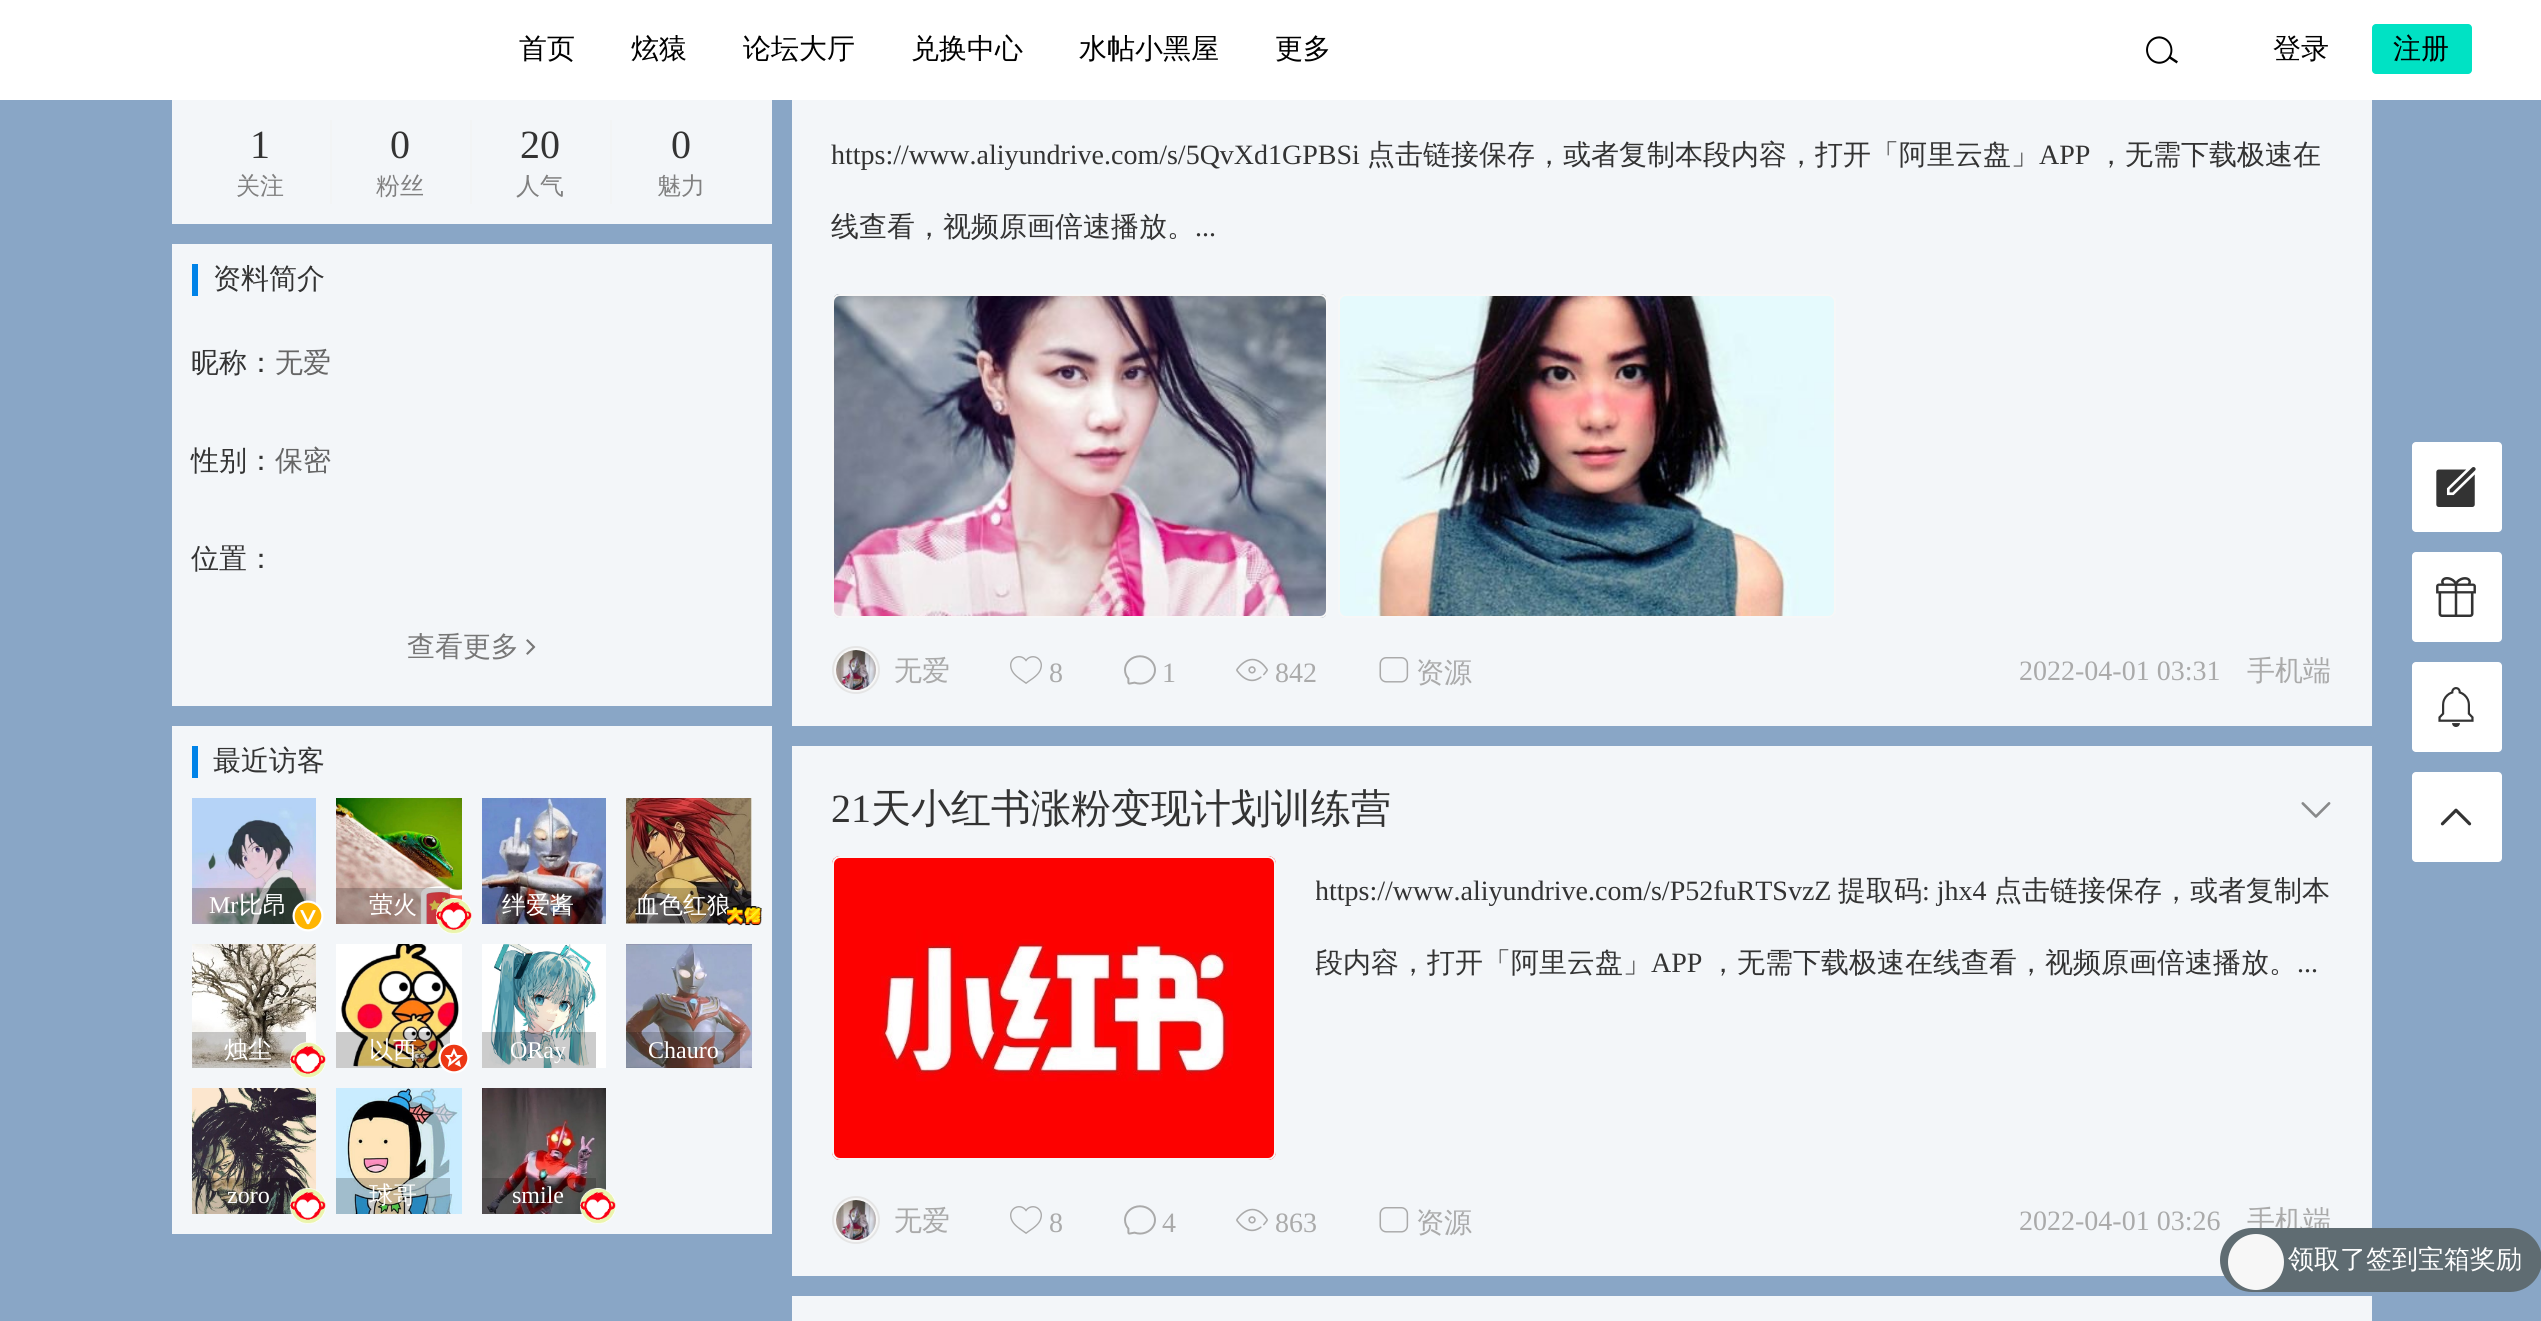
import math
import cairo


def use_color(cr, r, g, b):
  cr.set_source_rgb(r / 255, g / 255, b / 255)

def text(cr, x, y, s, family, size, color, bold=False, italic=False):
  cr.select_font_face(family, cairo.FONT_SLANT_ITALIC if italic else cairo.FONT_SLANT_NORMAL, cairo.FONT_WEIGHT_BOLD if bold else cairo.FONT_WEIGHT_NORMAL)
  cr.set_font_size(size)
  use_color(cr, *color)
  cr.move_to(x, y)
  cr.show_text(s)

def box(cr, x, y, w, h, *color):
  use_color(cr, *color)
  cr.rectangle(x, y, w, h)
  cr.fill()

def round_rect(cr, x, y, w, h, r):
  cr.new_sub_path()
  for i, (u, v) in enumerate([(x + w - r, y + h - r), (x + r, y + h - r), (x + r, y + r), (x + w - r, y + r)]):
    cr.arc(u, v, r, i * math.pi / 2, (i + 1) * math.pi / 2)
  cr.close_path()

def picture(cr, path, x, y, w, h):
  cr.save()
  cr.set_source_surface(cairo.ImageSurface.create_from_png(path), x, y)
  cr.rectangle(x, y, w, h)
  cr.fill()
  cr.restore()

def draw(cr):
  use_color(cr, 137, 166, 198)
  cr.paint()
  box(cr, 0, 0, 2541, 100, 255, 255, 255)
  picture(cr, "img_01.png", 2146, 36, 32, 28)
  use_color(cr, 0, 226, 196)
  round_rect(cr, 2372, 24, 100, 50, 4)
  cr.fill()
  box(cr, 172, 100, 600, 124, 243, 246, 249)
  box(cr, 330, 120, 2, 84, 242, 244, 245)
  box(cr, 470, 120, 2, 84, 242, 244, 245)
  box(cr, 610, 120, 2, 84, 242, 244, 245)
  box(cr, 172, 244, 600, 462, 243, 246, 249)
  box(cr, 192, 264, 6, 32, 0, 131, 232)
  picture(cr, "img_02.png", 526, 639, 10, 16)
  box(cr, 172, 726, 600, 508, 243, 246, 249)
  box(cr, 192, 746, 6, 32, 0, 131, 232)
  picture(cr, "img_03.png", 192, 798, 124, 126)
  cr.set_source_rgba(0, 0, 0, 0.2)
  cr.rectangle(192, 888, 114, 36)
  cr.fill()
  picture(cr, "img_04.png", 292, 900, 32, 32)
  picture(cr, "img_05.png", 336, 798, 126, 126)
  cr.rectangle(336, 888, 114, 36)
  cr.fill()
  picture(cr, "img_06.png", 436, 898, 36, 36)
  picture(cr, "img_07.png", 482, 798, 124, 126)
  cr.rectangle(482, 888, 114, 36)
  cr.fill()
  picture(cr, "img_08.png", 626, 798, 126, 126)
  cr.rectangle(626, 888, 114, 36)
  cr.fill()
  picture(cr, "img_10.png", 192, 944, 124, 124)
  cr.rectangle(192, 1032, 114, 36)
  cr.fill()
  picture(cr, "img_11.png", 290, 1042, 36, 36)
  picture(cr, "img_12.png", 336, 944, 126, 124)
  cr.rectangle(336, 1032, 114, 36)
  cr.fill()
  picture(cr, "img_13.png", 438, 1043, 32, 31)
  picture(cr, "img_14.png", 482, 944, 124, 124)
  cr.rectangle(482, 1032, 114, 36)
  cr.fill()
  picture(cr, "img_15.png", 626, 944, 126, 124)
  cr.rectangle(626, 1032, 114, 36)
  cr.fill()
  picture(cr, "img_16.png", 192, 1088, 124, 126)
  cr.rectangle(192, 1178, 114, 36)
  cr.fill()
  picture(cr, "img_17.png", 290, 1188, 36, 36)
  picture(cr, "img_18.png", 336, 1088, 126, 126)
  cr.rectangle(336, 1178, 114, 36)
  cr.fill()
  picture(cr, "img_19.png", 482, 1088, 124, 126)
  cr.rectangle(482, 1178, 114, 36)
  cr.fill()
  picture(cr, "img_20.png", 580, 1188, 36, 36)
  box(cr, 792, 100, 1580, 626, 243, 246, 249)
  picture(cr, "img_21.png", 834, 294, 492, 324)
  round_rect(cr, 833, 295, 494, 322, 7)
  use_color(cr, 247, 247, 247)
  cr.stroke()
  picture(cr, "img_22.png", 1340, 294, 494, 324)
  round_rect(cr, 1339, 295, 496, 322, 7)
  cr.stroke()
  cr.arc(856, 670, 23, 0, 2 * math.pi)
  cr.fill_preserve()
  use_color(cr, 229, 229, 229)
  cr.stroke()
  picture(cr, "img_23.png", 836, 650, 40, 40)
  picture(cr, "img_24.png", 1010, 656, 32, 28)
  picture(cr, "img_25.png", 1124, 655, 32, 30)
  picture(cr, "img_26.png", 1236, 658, 32, 24)
  picture(cr, "img_27.png", 1379, 657, 30, 26)
  box(cr, 792, 746, 1580, 530, 243, 246, 249)
  picture(cr, "img_28.png", 2301, 802, 30, 16)
  picture(cr, "img_29.png", 832, 856, 444, 304)
  round_rect(cr, 833, 857, 442, 302, 7)
  use_color(cr, 247, 247, 247)
  cr.stroke()
  cr.arc(856, 1220, 23, 0, 2 * math.pi)
  cr.fill_preserve()
  use_color(cr, 229, 229, 229)
  cr.stroke()
  picture(cr, "img_23.png", 836, 1200, 40, 40)
  picture(cr, "img_24.png", 1010, 1206, 32, 28)
  picture(cr, "img_25.png", 1124, 1205, 32, 30)
  picture(cr, "img_26.png", 1236, 1208, 32, 24)
  picture(cr, "img_27.png", 1379, 1207, 30, 26)
  box(cr, 792, 1296, 1580, 25, 243, 246, 249)
  use_color(cr, 255, 255, 255)
  round_rect(cr, 2412, 442, 90, 90, 4)
  cr.fill()
  picture(cr, "img_30.png", 2436, 467, 40, 40)
  round_rect(cr, 2412, 552, 90, 90, 4)
  cr.fill()
  picture(cr, "img_31.png", 2436, 577, 40, 40)
  round_rect(cr, 2412, 662, 90, 90, 4)
  cr.fill()
  picture(cr, "img_32.png", 2438, 687, 36, 40)
  round_rect(cr, 2412, 772, 90, 90, 4)
  cr.fill()
  picture(cr, "img_33.png", 2440, 808, 32, 18)
  text(cr, 519, 58, "首页", "WenQuanYi Zen Hei Medium", 28, (0, 0, 0))
  text(cr, 631, 58, "炫猿", "WenQuanYi Zen Hei Medium", 28, (0, 0, 0))
  text(cr, 743, 58, "论坛大厅", "WenQuanYi Zen Hei Medium", 28, (0, 0, 0))
  text(cr, 911, 58, "兑换中心", "WenQuanYi Zen Hei Medium", 28, (0, 0, 0))
  text(cr, 1079, 58, "水帖小黑屋", "WenQuanYi Zen Hei Medium", 28, (0, 0, 0))
  text(cr, 1275, 58, "更多", "WenQuanYi Zen Hei Medium", 28, (0, 0, 0))
  text(cr, 2273, 58, "登录", "WenQuanYi Zen Hei Medium", 28, (0, 0, 0))
  text(cr, 2393, 58, "注册", "WenQuanYi Zen Hei Medium", 28, (0, 0, 0))
  text(cr, 250, 158, "1", "Liberation Serif", 40, (51, 51, 51))
  text(cr, 236, 194, "关注", "WenQuanYi Zen Hei Medium", 24, (128, 128, 128))
  text(cr, 390, 158, "0", "Liberation Serif", 40, (51, 51, 51))
  text(cr, 376, 194, "粉丝", "WenQuanYi Zen Hei Medium", 24, (128, 128, 128))
  text(cr, 520, 158, "20", "Liberation Serif", 40, (51, 51, 51))
  text(cr, 516, 194, "人气", "WenQuanYi Zen Hei Medium", 24, (128, 128, 128))
  text(cr, 671, 158, "0", "Liberation Serif", 40, (51, 51, 51))
  text(cr, 657, 194, "魅力", "WenQuanYi Zen Hei Medium", 24, (128, 128, 128))
  text(cr, 213, 288, "资料简介", "WenQuanYi Zen Hei Medium", 28, (51, 51, 51))
  text(cr, 191, 372, "昵称：", "WenQuanYi Zen Hei Medium", 28, (51, 51, 51))
  text(cr, 275, 372, "无爱", "WenQuanYi Zen Hei Medium", 28, (102, 102, 102))
  text(cr, 191, 470, "性别：", "WenQuanYi Zen Hei Medium", 28, (51, 51, 51))
  text(cr, 275, 470, "保密", "WenQuanYi Zen Hei Medium", 28, (102, 102, 102))
  text(cr, 191, 568, "位置：", "WenQuanYi Zen Hei Medium", 28, (51, 51, 51))
  text(cr, 407, 656, "查看更多", "WenQuanYi Zen Hei Medium", 28, (119, 119, 119))
  text(cr, 213, 770, "最近访客", "WenQuanYi Zen Hei Medium", 28, (51, 51, 51))
  text(cr, 209, 913, "Mr", "Liberation Serif", 24, (255, 255, 255))
  text(cr, 239, 913, "比昂", "WenQuanYi Zen Hei Medium", 24, (255, 255, 255))
  text(cr, 369, 913, "萤火", "WenQuanYi Zen Hei Medium", 24, (255, 255, 255))
  text(cr, 502, 913, "绊爱酱", "WenQuanYi Zen Hei Medium", 24, (255, 255, 255))
  text(cr, 635, 913, "血色红狼", "WenQuanYi Zen Hei Medium", 24, (255, 255, 255))
  picture(cr, "img_09.png", 726, 905, 36, 21)
  text(cr, 224, 1058, "烛尘", "WenQuanYi Zen Hei Medium", 24, (255, 255, 255))
  text(cr, 369, 1058, "以西", "WenQuanYi Zen Hei Medium", 24, (255, 255, 255))
  text(cr, 510, 1058, "ORay", "Liberation Serif", 24, (255, 255, 255))
  text(cr, 648, 1058, "Chauro", "Liberation Serif", 24, (255, 255, 255))
  text(cr, 227, 1203, "zoro", "Liberation Serif", 24, (255, 255, 255))
  text(cr, 369, 1203, "球哥", "WenQuanYi Zen Hei Medium", 24, (255, 255, 255))
  text(cr, 512, 1203, "smile", "Liberation Serif", 24, (255, 255, 255))
  text(cr, 831, 164, "https://www.aliyundrive.com/s/5QvXd1GPBSi", "Liberation Serif", 28, (51, 51, 51))
  text(cr, 1367, 164, "点击链接保存，或者复制本段内容，打开「阿里云盘」", "WenQuanYi Zen Hei Medium", 28, (51, 51, 51))
  text(cr, 2039, 164, "APP", "Liberation Serif", 28, (51, 51, 51))
  text(cr, 2097, 164, "，无需下载极速在", "WenQuanYi Zen Hei Medium", 28, (51, 51, 51))
  text(cr, 831, 236, "线查看，视频原画倍速播放。", "WenQuanYi Zen Hei Medium", 28, (51, 51, 51))
  text(cr, 1195, 236, "...", "Liberation Serif", 28, (51, 51, 51))
  text(cr, 894, 680, "无爱", "WenQuanYi Zen Hei Medium", 28, (170, 170, 170))
  text(cr, 1049, 682, "8", "Liberation Serif", 28, (170, 170, 170))
  text(cr, 1162, 682, "1", "Liberation Serif", 28, (170, 170, 170))
  text(cr, 1275, 682, "842", "Liberation Serif", 28, (170, 170, 170))
  text(cr, 1416, 682, "资源", "WenQuanYi Zen Hei Medium", 28, (170, 170, 170))
  text(cr, 2019, 680, "2022-04-01 03:31", "Liberation Serif", 28, (170, 170, 170))
  text(cr, 2247, 680, "手机端", "WenQuanYi Zen Hei Medium", 28, (170, 170, 170))
  text(cr, 831, 822, "21", "Liberation Serif", 40, (51, 51, 51))
  text(cr, 871, 822, "天小红书涨粉变现计划训练营", "WenQuanYi Zen Hei Medium", 40, (51, 51, 51))
  cr.save()
  cr.rectangle(1316, 856, 1016, 304)
  cr.clip()
  text(cr, 1315, 900, "https://www.aliyundrive.com/s/P52fuRTSvzZ", "Liberation Serif", 28, (51, 51, 51))
  cr.restore()
  text(cr, 1838, 900, "提取码", "WenQuanYi Zen Hei Medium", 28, (51, 51, 51))
  text(cr, 1922, 900, ": jhx4", "Liberation Serif", 28, (51, 51, 51))
  text(cr, 1994, 900, "点击链接保存，或者复制本", "WenQuanYi Zen Hei Medium", 28, (51, 51, 51))
  cr.save()
  cr.rectangle(1316, 856, 1016, 304)
  cr.clip()
  text(cr, 1315, 972, "段内容，打开「阿里云盘」", "WenQuanYi Zen Hei Medium", 28, (51, 51, 51))
  cr.restore()
  text(cr, 1651, 972, "APP", "Liberation Serif", 28, (51, 51, 51))
  text(cr, 1709, 972, "，无需下载极速在线查看，视频原画倍速播放。", "WenQuanYi Zen Hei Medium", 28, (51, 51, 51))
  text(cr, 2297, 972, "...", "Liberation Serif", 28, (51, 51, 51))
  text(cr, 894, 1230, "无爱", "WenQuanYi Zen Hei Medium", 28, (170, 170, 170))
  text(cr, 1049, 1232, "8", "Liberation Serif", 28, (170, 170, 170))
  text(cr, 1162, 1232, "4", "Liberation Serif", 28, (170, 170, 170))
  text(cr, 1275, 1232, "863", "Liberation Serif", 28, (170, 170, 170))
  text(cr, 1416, 1232, "资源", "WenQuanYi Zen Hei Medium", 28, (170, 170, 170))
  text(cr, 2019, 1230, "2022-04-01 03:26", "Liberation Serif", 28, (170, 170, 170))
  text(cr, 2247, 1230, "手机端", "WenQuanYi Zen Hei Medium", 28, (170, 170, 170))
  use_color(cr, 95, 108, 114)
  round_rect(cr, 2220, 1228, 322, 64, 32)
  cr.fill()
  use_color(cr, 247, 247, 247)
  cr.arc(2256, 1262, 27, 0, 2 * math.pi)
  cr.fill_preserve()
  cr.stroke()
  text(cr, 2288, 1268, "领取了签到宝箱奖励", "WenQuanYi Zen Hei Medium", 26, (255, 255, 255))


surface = cairo.ImageSurface(cairo.FORMAT_RGB24, 2541, 1321)
cr = cairo.Context(surface)
options = cairo.FontOptions()
options.set_hint_metrics(cairo.HINT_METRICS_OFF)
options.set_hint_style(cairo.HINT_STYLE_NONE)
cr.set_font_options(options)
cr.set_miter_limit(4)
draw(cr)
surface.write_to_png("out.png")
